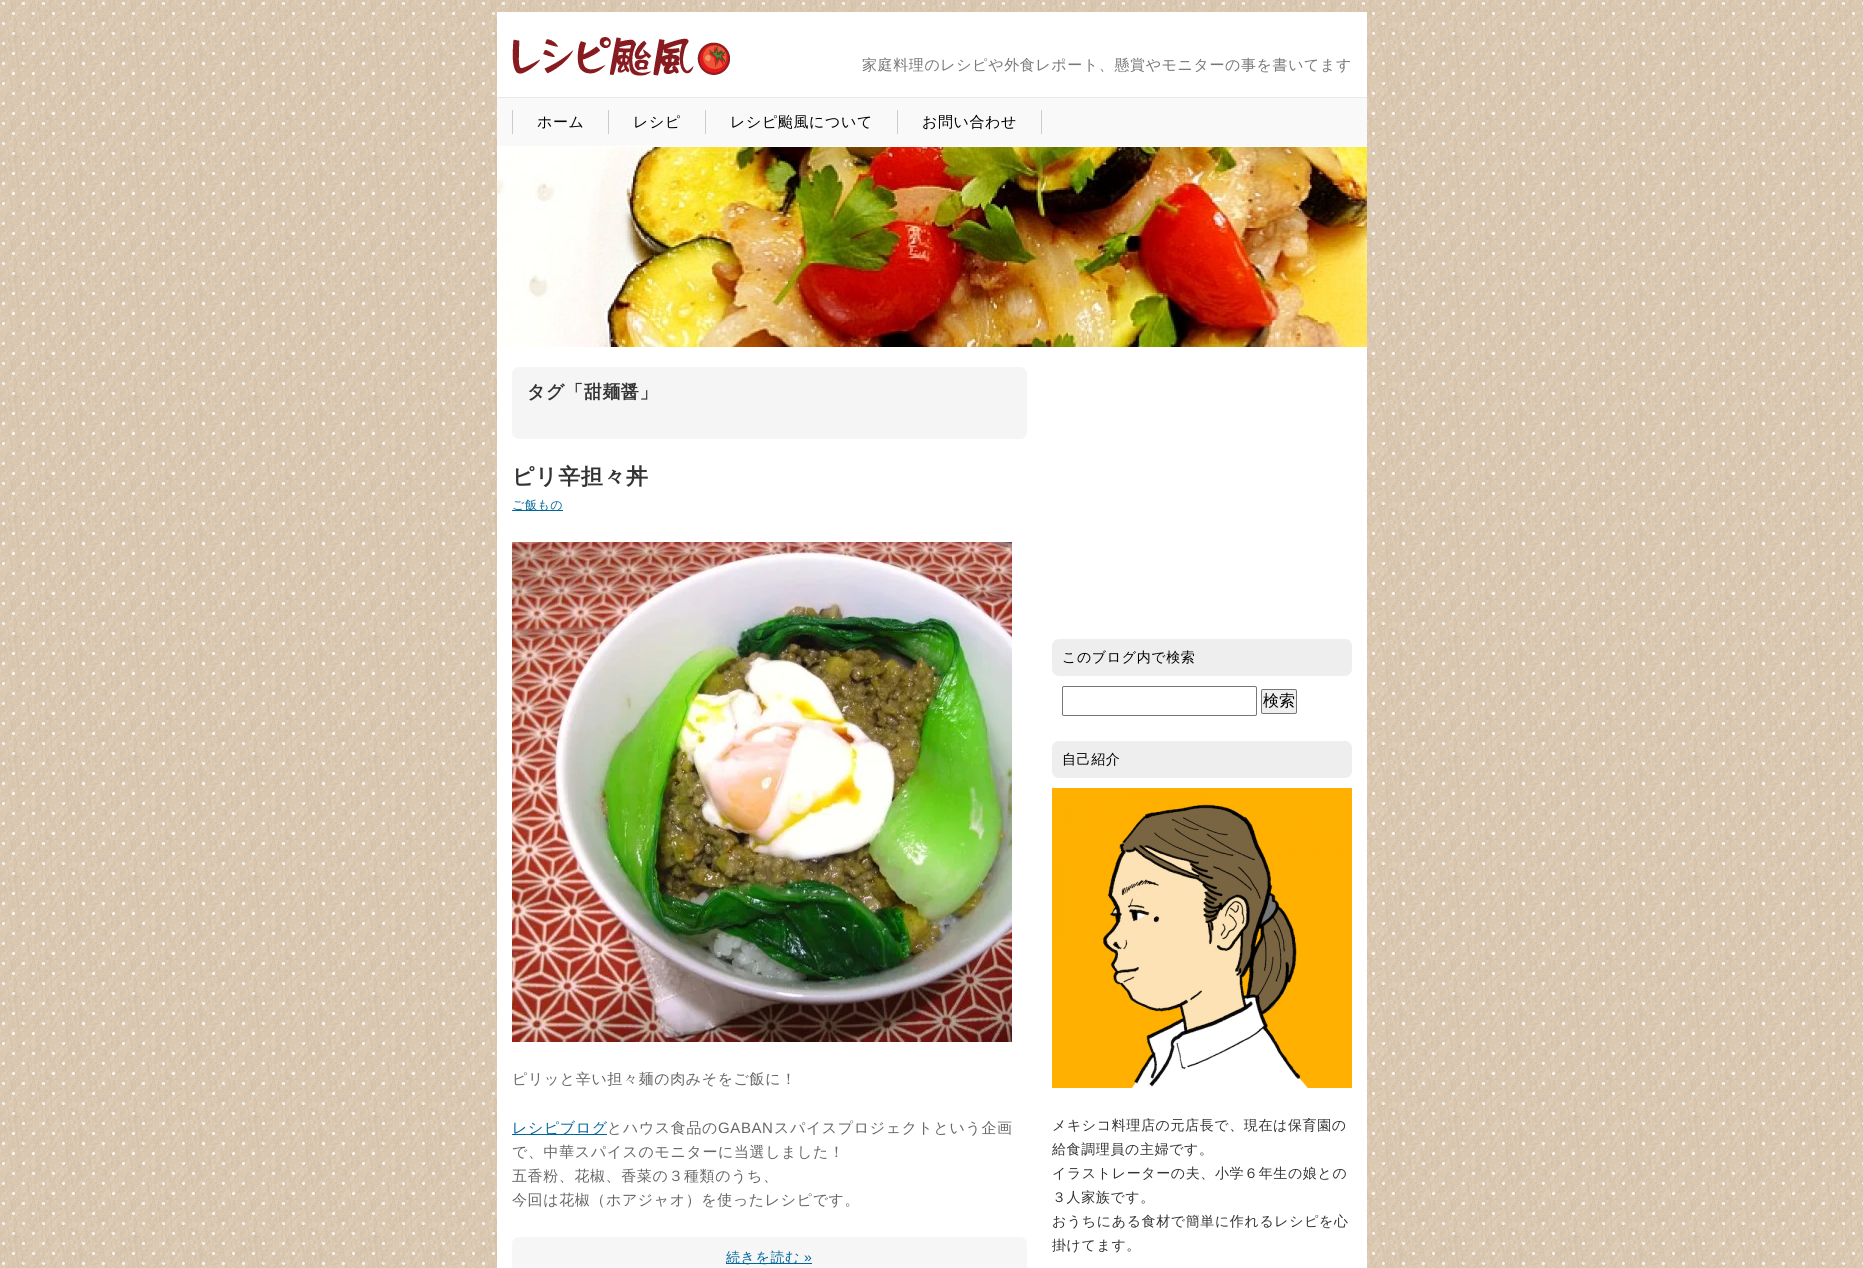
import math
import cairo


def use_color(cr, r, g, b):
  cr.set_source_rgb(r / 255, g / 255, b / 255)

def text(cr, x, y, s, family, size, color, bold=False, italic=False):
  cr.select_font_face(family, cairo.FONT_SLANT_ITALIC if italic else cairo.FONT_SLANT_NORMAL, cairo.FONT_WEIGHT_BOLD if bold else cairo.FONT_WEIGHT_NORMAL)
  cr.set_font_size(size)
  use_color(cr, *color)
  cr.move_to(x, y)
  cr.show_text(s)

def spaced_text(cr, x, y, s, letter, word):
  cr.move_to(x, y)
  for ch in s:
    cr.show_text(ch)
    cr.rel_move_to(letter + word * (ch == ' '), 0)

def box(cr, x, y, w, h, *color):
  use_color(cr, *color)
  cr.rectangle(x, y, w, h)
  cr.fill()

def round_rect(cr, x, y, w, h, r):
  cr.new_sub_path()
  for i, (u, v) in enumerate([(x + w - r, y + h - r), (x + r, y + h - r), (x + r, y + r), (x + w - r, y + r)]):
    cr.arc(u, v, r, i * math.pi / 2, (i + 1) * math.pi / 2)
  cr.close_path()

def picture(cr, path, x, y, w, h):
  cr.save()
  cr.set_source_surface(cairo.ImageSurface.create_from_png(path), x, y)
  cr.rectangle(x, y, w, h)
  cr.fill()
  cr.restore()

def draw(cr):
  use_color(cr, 255, 255, 255)
  cr.paint()
  picture(cr, "img_01.png", 0, 0, 1863, 1268)
  box(cr, 497, 12, 870, 1256, 255, 255, 255)
  picture(cr, "img_02.png", 512, 37, 218, 39)
  box(cr, 497, 98, 870, 48, 249, 249, 249)
  box(cr, 497, 97, 870, 1, 232, 232, 232)
  box(cr, 608, 110, 1, 24, 204, 204, 204)
  box(cr, 512, 110, 1, 24, 204, 204, 204)
  box(cr, 705, 110, 1, 24, 204, 204, 204)
  box(cr, 897, 110, 1, 24, 204, 204, 204)
  box(cr, 1041, 110, 1, 24, 204, 204, 204)
  picture(cr, "img_03.png", 497, 147, 870, 200)
  use_color(cr, 245, 245, 245)
  round_rect(cr, 512, 367, 515, 72, 7)
  cr.fill()
  box(cr, 512, 510, 51, 1, 0, 102, 153)
  picture(cr, "img_04.png", 512, 542, 500, 500)
  box(cr, 512, 1134, 95, 1, 0, 102, 153)
  use_color(cr, 246, 246, 246)
  round_rect(cr, 512, 1237, 515, 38, 7)
  cr.fill()
  box(cr, 726, 1263, 86, 1, 0, 102, 153)
  use_color(cr, 238, 238, 238)
  round_rect(cr, 1052, 639, 300, 37, 7)
  cr.fill()
  round_rect(cr, 1062.5, 686.5, 194, 29, 1.5)
  use_color(cr, 118, 118, 118)
  cr.set_line_width(1)
  cr.stroke()
  use_color(cr, 239, 239, 239)
  round_rect(cr, 1261.5, 689.5, 35, 24, 1.5)
  cr.fill_preserve()
  use_color(cr, 118, 118, 118)
  cr.stroke()
  use_color(cr, 238, 238, 238)
  round_rect(cr, 1052, 741, 300, 37, 7)
  cr.fill()
  picture(cr, "img_05.png", 1052, 788, 300, 300)
  cr.select_font_face("WenQuanYi Zen Hei Medium")
  cr.set_font_size(15)
  use_color(cr, 119, 119, 119)
  spaced_text(cr, 862, 70, "家庭料理のレシピや外食レポート、懸賞やモニターの事を書いてます", 0.6, 0)
  use_color(cr, 0, 0, 0)
  spaced_text(cr, 537, 127, "ホーム", 0.6, 0)
  spaced_text(cr, 633, 127, "レシピ", 0.6, 0)
  spaced_text(cr, 730, 127, "レシピ颱風について", 0.6, 0)
  spaced_text(cr, 922, 127, "お問い合わせ", 0.6, 0)
  cr.select_font_face("WenQuanYi Zen Hei", cairo.FONT_SLANT_NORMAL, cairo.FONT_WEIGHT_BOLD)
  cr.set_font_size(18)
  use_color(cr, 51, 51, 51)
  spaced_text(cr, 527, 398, "タグ「甜麺醤」", 0.6, 0)
  cr.set_font_size(22)
  spaced_text(cr, 512, 484, "ピリ辛担々丼", 0.6, 0)
  cr.select_font_face("WenQuanYi Zen Hei Medium")
  cr.set_font_size(12)
  use_color(cr, 0, 102, 153)
  spaced_text(cr, 512, 509, "ご飯もの", 0.6, 0)
  cr.set_font_size(15)
  use_color(cr, 102, 102, 102)
  spaced_text(cr, 512, 1084, "ピリッと辛い担々麺の肉みそをご飯に！", 0.6, 0)
  use_color(cr, 0, 102, 153)
  spaced_text(cr, 512, 1133, "レシピブログ", 0.6, 0)
  use_color(cr, 102, 102, 102)
  spaced_text(cr, 607, 1133, "とハウス食品の", 0.6, 0)
  cr.select_font_face("Liberation Sans")
  spaced_text(cr, 718, 1133, "GABAN", 0.6, 0)
  cr.select_font_face("WenQuanYi Zen Hei Medium")
  spaced_text(cr, 774, 1133, "スパイスプロジェクトという企画", 0.6, 0)
  spaced_text(cr, 512, 1157, "で、中華スパイスのモニターに当選しました！", 0.6, 0)
  spaced_text(cr, 512, 1181, "五香粉、花椒、香菜の３種類のうち、", 0.6, 0)
  spaced_text(cr, 512, 1205, "今回は花椒（ホアジャオ）を使ったレシピです。", 0.6, 0)
  cr.set_font_size(14)
  use_color(cr, 0, 102, 153)
  spaced_text(cr, 726, 1262, "続きを読む", 0.6, 0)
  cr.select_font_face("Liberation Sans")
  spaced_text(cr, 804, 1262, "»", 0.6, 0)
  cr.select_font_face("WenQuanYi Zen Hei Medium")
  use_color(cr, 0, 0, 0)
  spaced_text(cr, 1062, 662, "このブログ内で検索", 0.6, 0)
  text(cr, 1263, 706, "検索", "WenQuanYi Zen Hei Medium", 16, (0, 0, 0))
  cr.set_font_size(14)
  spaced_text(cr, 1062, 764, "自己紹介", 0.6, 0)
  use_color(cr, 51, 51, 51)
  spaced_text(cr, 1052, 1130, "メキシコ料理店の元店長で、現在は保育園の", 0.6, 0)
  spaced_text(cr, 1052, 1154, "給食調理員の主婦です。", 0.6, 0)
  spaced_text(cr, 1052, 1178, "イラストレーターの夫、小学６年生の娘との", 0.6, 0)
  spaced_text(cr, 1052, 1202, "３人家族です。", 0.6, 0)
  spaced_text(cr, 1052, 1226, "おうちにある食材で簡単に作れるレシピを心", 0.6, 0)
  spaced_text(cr, 1052, 1250, "掛けてます。", 0.6, 0)


surface = cairo.ImageSurface(cairo.FORMAT_RGB24, 1863, 1268)
cr = cairo.Context(surface)
options = cairo.FontOptions()
options.set_hint_metrics(cairo.HINT_METRICS_OFF)
options.set_hint_style(cairo.HINT_STYLE_NONE)
cr.set_font_options(options)
cr.set_miter_limit(4)
draw(cr)
surface.write_to_png("out.png")
